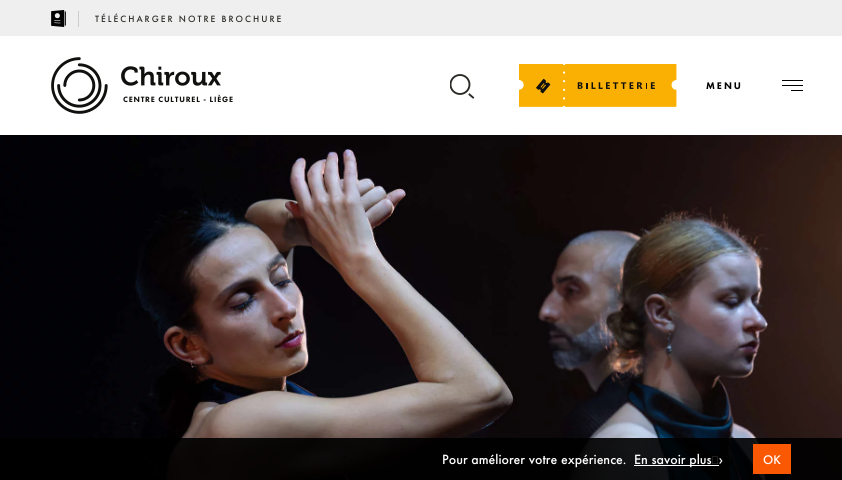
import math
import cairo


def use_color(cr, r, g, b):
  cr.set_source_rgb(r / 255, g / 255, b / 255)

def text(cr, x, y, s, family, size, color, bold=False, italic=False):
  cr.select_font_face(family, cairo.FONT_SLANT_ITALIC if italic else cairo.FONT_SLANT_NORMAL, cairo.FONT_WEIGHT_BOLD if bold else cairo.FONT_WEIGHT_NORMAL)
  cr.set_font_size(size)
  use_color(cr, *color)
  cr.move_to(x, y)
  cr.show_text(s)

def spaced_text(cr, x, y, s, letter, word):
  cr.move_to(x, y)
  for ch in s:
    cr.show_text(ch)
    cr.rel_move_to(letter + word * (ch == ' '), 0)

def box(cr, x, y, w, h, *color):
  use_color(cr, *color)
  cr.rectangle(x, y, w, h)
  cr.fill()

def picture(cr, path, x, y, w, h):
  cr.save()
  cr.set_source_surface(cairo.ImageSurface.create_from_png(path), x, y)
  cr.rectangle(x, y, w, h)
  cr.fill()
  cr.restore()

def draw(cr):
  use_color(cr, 255, 255, 255)
  cr.paint()
  box(cr, 0, 0, 842, 36, 239, 239, 239)
  picture(cr, "img_01.png", 51, 10, 15, 17)
  box(cr, 78, 11, 1, 16, 204, 204, 204)
  cr.new_path()
  cr.move_to(473, 97.5)
  cr.line_to(469.5, 94.5)
  use_color(cr, 44, 42, 38)
  cr.set_line_width(1.9)
  cr.set_line_cap(cairo.LINE_CAP_SQUARE)
  cr.stroke()
  cr.save()
  cr.rectangle(450, 74, 24, 25)
  cr.clip()
  cr.arc(460, 84.5, 9.5, 0, 2 * math.pi)
  cr.set_line_cap(cairo.LINE_CAP_BUTT)
  cr.stroke()
  cr.restore()
  picture(cr, "img_02.png", 519, 64, 158, 43)
  picture(cr, "img_03.png", 51, 57, 170, 57)
  box(cr, 782, 85, 21, 1, 0, 0, 0)
  box(cr, 782, 80, 21, 1, 0, 0, 0)
  box(cr, 791, 90, 12, 1, 0, 0, 0)
  picture(cr, "img_04.png", 0, 135, 842, 345)
  cr.set_source_rgba(0, 0, 0, 0.9)
  cr.rectangle(0, 438, 842, 42)
  cr.fill()
  box(cr, 634, 465, 85, 1, 255, 255, 255)
  box(cr, 753, 444, 38, 30, 250, 88, 2)
  cr.select_font_face("Futura PT Medium")
  cr.set_font_size(9.5)
  use_color(cr, 44, 42, 38)
  spaced_text(cr, 95, 22, "TÉLÉCHARGER NOTRE BROCHURE", 2, 0)
  cr.select_font_face("Futura PT Black")
  cr.set_font_size(10)
  use_color(cr, 0, 0, 0)
  spaced_text(cr, 706, 89, "MENU", 2, 0)
  cr.set_font_size(8)
  use_color(cr, 16, 16, 14)
  spaced_text(cr, 123, 102, "CENTRE CULTUREL - LIÈGE", 0.8, 0)
  cr.select_font_face("Futura PT Medium")
  cr.set_font_size(14)
  use_color(cr, 255, 255, 255)
  spaced_text(cr, 442, 464, "Pour améliorer votre expérience.", 0, 0.5)
  spaced_text(cr, 634, 464, "En savoir plus ›", 0, 0.5)
  text(cr, 763, 464, "OK", "Futura PT Medium", 13, (255, 255, 255))


surface = cairo.ImageSurface(cairo.FORMAT_RGB24, 842, 480)
cr = cairo.Context(surface)
options = cairo.FontOptions()
options.set_hint_metrics(cairo.HINT_METRICS_OFF)
options.set_hint_style(cairo.HINT_STYLE_NONE)
cr.set_font_options(options)
cr.set_miter_limit(4)
draw(cr)
surface.write_to_png("out.png")
